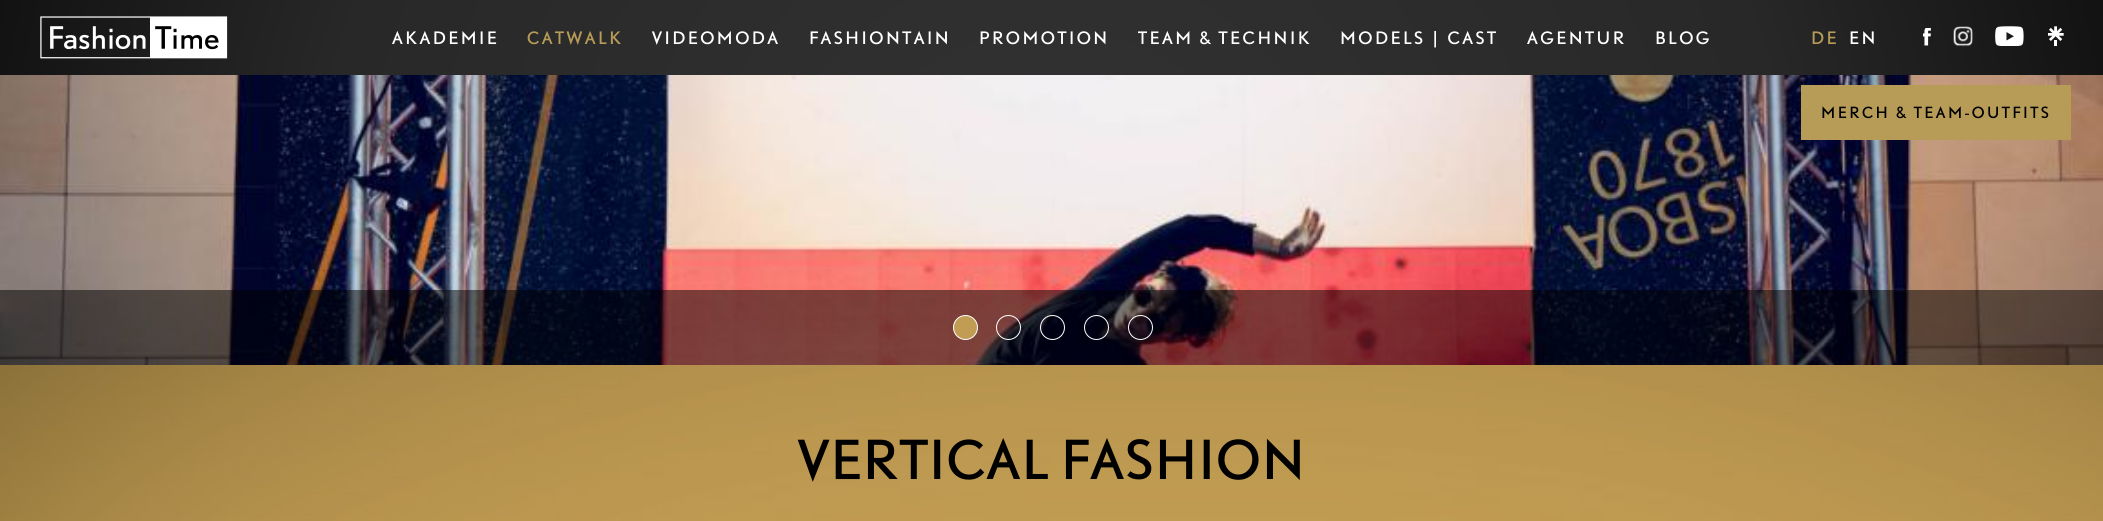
import math
import cairo


def use_color(cr, r, g, b):
  cr.set_source_rgb(r / 255, g / 255, b / 255)

def spaced_text(cr, x, y, s, letter, word):
  cr.move_to(x, y)
  for ch in s:
    cr.show_text(ch)
    cr.rel_move_to(letter + word * (ch == ' '), 0)

def box(cr, x, y, w, h, *color):
  use_color(cr, *color)
  cr.rectangle(x, y, w, h)
  cr.fill()

def picture(cr, path, x, y, w, h):
  cr.save()
  cr.set_source_surface(cairo.ImageSurface.create_from_png(path), x, y)
  cr.rectangle(x, y, w, h)
  cr.fill()
  cr.restore()

def draw(cr):
  use_color(cr, 255, 255, 255)
  cr.paint()
  gradient = cairo.RadialGradient(1052, 261, 0, 1052, 261, 1084)
  gradient.add_color_stop_rgba(0, 0.2, 0.2, 0.2, 1)
  gradient.add_color_stop_rgba(0.67, 0.157, 0.157, 0.157, 1)
  gradient.add_color_stop_rgba(0.68, 0.157, 0.157, 0.157, 1)
  gradient.add_color_stop_rgba(1, 0.071, 0.071, 0.071, 1)
  cr.set_source(gradient)
  cr.rectangle(0, 0, 2103, 75)
  cr.fill()
  picture(cr, "img_01.png", 0, 75, 2103, 290)
  cr.set_source_rgba(0, 0, 0, 0.5)
  cr.rectangle(0, 290, 2103, 75)
  cr.fill()
  use_color(cr, 192, 157, 83)
  cr.arc(965.5, 327.5, 12, 0, 2 * math.pi)
  cr.fill_preserve()
  use_color(cr, 255, 255, 255)
  cr.set_line_width(1)
  cr.stroke()
  cr.arc(1008.5, 327.5, 12, 0, 2 * math.pi)
  cr.stroke()
  cr.arc(1052.5, 327.5, 12, 0, 2 * math.pi)
  cr.stroke()
  cr.arc(1096.5, 327.5, 12, 0, 2 * math.pi)
  cr.stroke()
  cr.arc(1140.5, 327.5, 12, 0, 2 * math.pi)
  cr.stroke()
  picture(cr, "img_02.png", 40, 16, 188, 43)
  picture(cr, "img_03.png", 1923, 28, 8, 18)
  picture(cr, "img_04.png", 1953, 26, 20, 21)
  picture(cr, "img_05.png", 1995, 26, 29, 20)
  picture(cr, "img_06.png", 2048, 26, 16, 20)
  box(cr, 1801, 85, 270, 55, 183, 156, 88)
  picture(cr, "img_07.png", 0, 365, 2103, 156)
  cr.select_font_face("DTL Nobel")
  cr.set_font_size(16)
  use_color(cr, 255, 255, 255)
  spaced_text(cr, 392, 44, "AKADEMIE", 2.5, 0)
  use_color(cr, 183, 156, 88)
  spaced_text(cr, 527, 44, "CATWALK", 2.5, 0)
  use_color(cr, 255, 255, 255)
  spaced_text(cr, 652, 44, "VIDEOMODA", 2.5, 0)
  spaced_text(cr, 809, 44, "FASHIONTAIN", 2.5, 0)
  spaced_text(cr, 979, 44, "PROMOTION", 2.5, 0)
  spaced_text(cr, 1138, 44, "TEAM & TECHNIK", 2.5, 0)
  spaced_text(cr, 1340, 44, "MODELS | CAST", 2.5, 0)
  spaced_text(cr, 1527, 44, "AGENTUR", 2.5, 0)
  spaced_text(cr, 1655, 44, "BLOG", 2.5, 0)
  cr.set_font_size(14.4)
  use_color(cr, 0, 0, 0)
  spaced_text(cr, 1821, 118, "MERCH & TEAM-OUTFITS", 2.5, 0)
  cr.set_font_size(16)
  use_color(cr, 183, 156, 88)
  spaced_text(cr, 1811, 44, "DE", 2.5, 0)
  use_color(cr, 255, 255, 255)
  spaced_text(cr, 1849, 44, "EN", 2.5, 0)
  cr.set_font_size(50)
  use_color(cr, 0, 0, 0)
  spaced_text(cr, 798, 479, "VERTICAL FASHION", 1.25, 0)


surface = cairo.ImageSurface(cairo.FORMAT_RGB24, 2103, 521)
cr = cairo.Context(surface)
options = cairo.FontOptions()
options.set_hint_metrics(cairo.HINT_METRICS_OFF)
options.set_hint_style(cairo.HINT_STYLE_NONE)
cr.set_font_options(options)
cr.set_miter_limit(4)
draw(cr)
surface.write_to_png("out.png")
